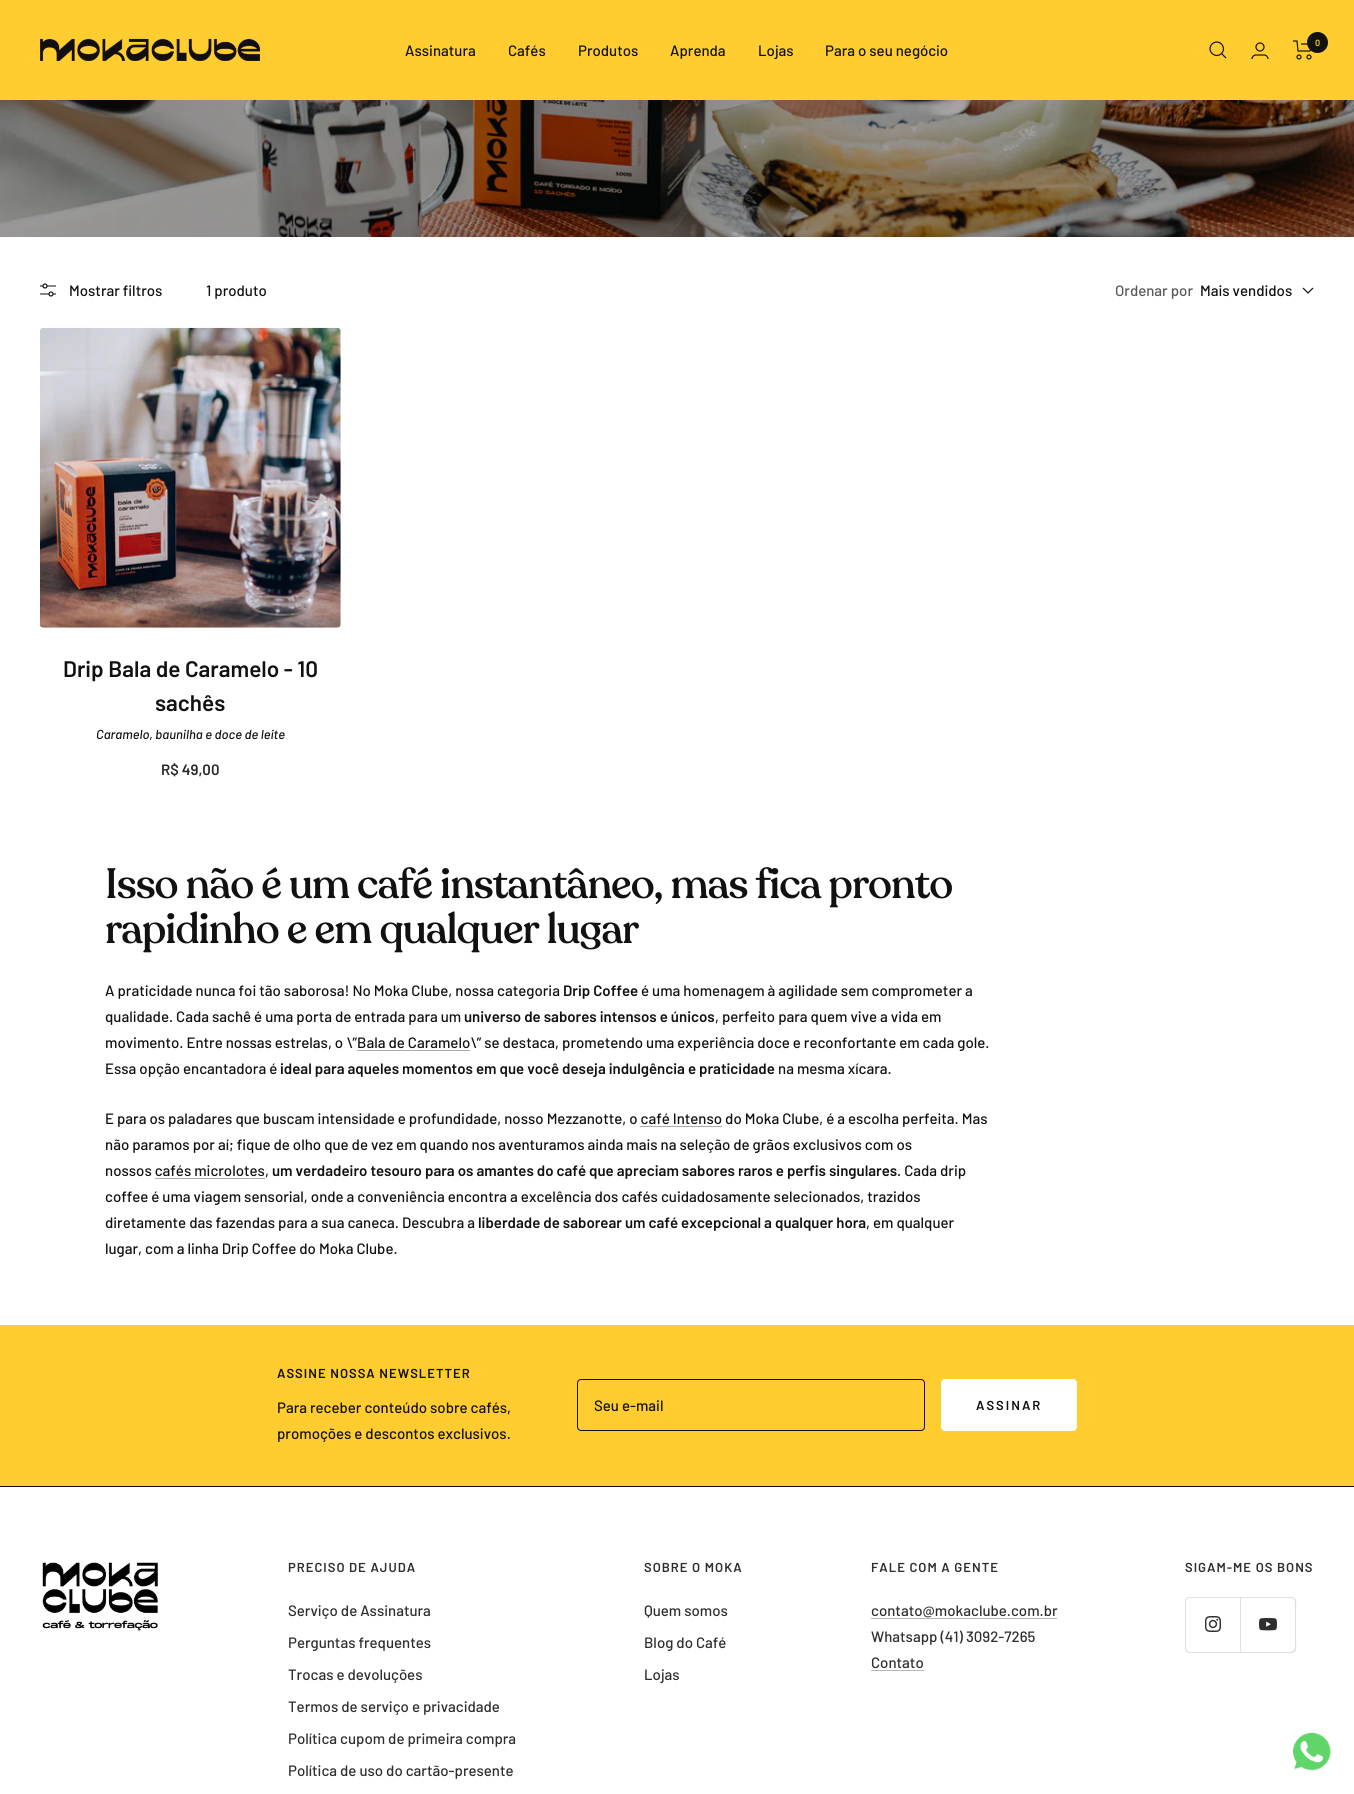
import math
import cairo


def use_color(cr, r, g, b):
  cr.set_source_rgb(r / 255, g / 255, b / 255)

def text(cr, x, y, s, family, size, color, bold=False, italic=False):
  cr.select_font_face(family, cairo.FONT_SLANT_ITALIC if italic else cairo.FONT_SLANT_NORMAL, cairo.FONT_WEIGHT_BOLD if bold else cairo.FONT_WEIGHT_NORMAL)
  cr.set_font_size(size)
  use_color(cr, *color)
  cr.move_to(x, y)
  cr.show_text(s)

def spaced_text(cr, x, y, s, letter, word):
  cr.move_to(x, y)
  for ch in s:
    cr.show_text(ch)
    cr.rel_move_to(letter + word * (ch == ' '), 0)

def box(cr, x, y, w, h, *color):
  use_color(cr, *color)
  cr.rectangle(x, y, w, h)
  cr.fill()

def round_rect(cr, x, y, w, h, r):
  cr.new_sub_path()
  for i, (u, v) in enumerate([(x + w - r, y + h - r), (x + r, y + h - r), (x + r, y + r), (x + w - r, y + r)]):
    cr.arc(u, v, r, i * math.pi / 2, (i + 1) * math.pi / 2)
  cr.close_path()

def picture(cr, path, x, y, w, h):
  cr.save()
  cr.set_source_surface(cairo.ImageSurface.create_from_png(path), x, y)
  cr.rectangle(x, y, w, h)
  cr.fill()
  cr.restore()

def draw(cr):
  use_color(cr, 255, 255, 255)
  cr.paint()
  box(cr, 0, 0, 1354, 100, 255, 205, 48)
  picture(cr, "img_01.png", 40, 38, 220, 23)
  cr.new_path()
  cr.move_to(1221.5, 53.5)
  cr.curve_to(1227.5, 47, 1218.5, 38, 1212, 44)
  cr.curve_to(1206, 50.5, 1215, 59.5, 1221.5, 53.5)
  cr.close_path()
  cr.move_to(1221.5, 53.5)
  cr.line_to(1226, 58)
  use_color(cr, 17, 17, 17)
  cr.set_line_width(1.2)
  cr.stroke()
  picture(cr, "img_02.png", 1251, 42, 18, 17)
  picture(cr, "img_03.png", 1293, 40, 19, 20)
  cr.arc(1317.5, 42.5, 10.5, 0, 2 * math.pi)
  cr.fill()
  picture(cr, "img_04.png", 0, 100, 1354, 137)
  picture(cr, "img_05.png", 40, 283, 16, 14)
  cr.new_path()
  cr.move_to(1303, 288)
  cr.line_to(1308, 293)
  cr.line_to(1313, 288)
  cr.stroke()
  picture(cr, "img_06.png", 40, 327, 301, 301)
  box(cr, 155, 1178, 110, 1, 172, 172, 172)
  box(cr, 0, 1325, 1354, 161, 255, 205, 48)
  round_rect(cr, 577.5, 1379.5, 347, 51, 3.5)
  use_color(cr, 17, 17, 17)
  cr.set_line_width(1)
  cr.stroke()
  use_color(cr, 255, 255, 255)
  round_rect(cr, 941, 1379, 136, 52, 4)
  cr.fill()
  box(cr, 0, 1486, 1354, 1, 17, 17, 17)
  picture(cr, "img_07.png", 42, 1562, 116, 69)
  box(cr, 871, 1618, 186, 1, 182, 182, 182)
  box(cr, 871, 1670, 53, 1, 182, 182, 182)
  use_color(cr, 224, 224, 224)
  cr.new_path()
  cr.move_to(1185, 1648)
  cr.line_to(1185, 1649)
  cr.curve_to(1185, 1651, 1187, 1653, 1189, 1653)
  cr.line_to(1240, 1653)
  cr.line_to(1240, 1652)
  cr.line_to(1189, 1652)
  cr.curve_to(1187, 1652, 1185, 1650, 1185, 1648)
  cr.close_path()
  cr.fill()
  box(cr, 1240, 1597, 1, 55, 224, 224, 224)
  cr.new_path()
  cr.move_to(1189, 1598)
  cr.line_to(1240, 1598)
  cr.line_to(1240, 1597)
  cr.line_to(1189, 1597)
  cr.curve_to(1187, 1597, 1185, 1599, 1185, 1601)
  cr.line_to(1185, 1602)
  cr.curve_to(1185, 1600, 1187, 1598, 1189, 1598)
  cr.close_path()
  cr.fill()
  cr.new_path()
  cr.move_to(1189, 1597)
  cr.curve_to(1187, 1597, 1185, 1599, 1185, 1601)
  cr.line_to(1185, 1648)
  cr.curve_to(1185, 1650, 1187, 1652, 1189, 1652)
  cr.line_to(1190, 1652)
  cr.curve_to(1188, 1652, 1186, 1650, 1186, 1648)
  cr.line_to(1186, 1601)
  cr.curve_to(1186, 1599, 1188, 1597, 1190, 1597)
  cr.close_path()
  cr.fill()
  picture(cr, "img_08.png", 1205, 1616, 16, 16)
  cr.new_path()
  cr.move_to(1241, 1652)
  cr.line_to(1241, 1653)
  cr.line_to(1292, 1653)
  cr.curve_to(1294, 1653, 1296, 1651, 1296, 1649)
  cr.line_to(1296, 1602)
  cr.curve_to(1296, 1601, 1295, 1599, 1294, 1599)
  cr.line_to(1295, 1601)
  cr.line_to(1295, 1648)
  cr.curve_to(1295, 1650, 1293, 1652, 1291, 1652)
  cr.close_path()
  cr.fill()
  cr.new_path()
  cr.move_to(1240, 1652)
  cr.line_to(1240, 1653)
  cr.line_to(1291, 1653)
  cr.curve_to(1293, 1653, 1295, 1651, 1295, 1649)
  cr.line_to(1295, 1648)
  cr.curve_to(1295, 1650, 1293, 1652, 1291, 1652)
  cr.close_path()
  cr.fill()
  cr.new_path()
  cr.move_to(1291, 1652)
  cr.curve_to(1298, 1652, 1296, 1645, 1296, 1640)
  cr.line_to(1296, 1609)
  cr.curve_to(1296, 1604, 1298, 1597, 1291, 1597)
  cr.curve_to(1293, 1597, 1295, 1599, 1295, 1601)
  cr.line_to(1295, 1648)
  cr.curve_to(1295, 1650, 1293, 1652, 1291, 1652)
  cr.close_path()
  cr.fill()
  cr.new_path()
  cr.move_to(1240, 1598)
  cr.line_to(1291, 1598)
  cr.curve_to(1293, 1598, 1295, 1600, 1295, 1602)
  cr.line_to(1295, 1601)
  cr.curve_to(1295, 1599, 1293, 1597, 1291, 1597)
  cr.line_to(1240, 1597)
  cr.close_path()
  cr.fill()
  picture(cr, "img_09.png", 1259, 1618, 18, 13)
  picture(cr, "img_10.png", 1292, 1732, 39, 39)
  text(cr, 1315, 46, "0", "Barlow SemiBold", 9, (255, 205, 48))
  text(cr, 405, 56, "Assinatura", "Barlow Medium", 15, (17, 17, 17))
  text(cr, 508, 56, "Cafés", "Barlow Medium", 15, (17, 17, 17))
  text(cr, 578, 56, "Produtos", "Barlow Medium", 15, (17, 17, 17))
  text(cr, 670, 56, "Aprenda", "Barlow Medium", 15, (17, 17, 17))
  text(cr, 758, 56, "Lojas", "Barlow Medium", 15, (17, 17, 17))
  text(cr, 825, 56, "Para o seu negócio", "Barlow Medium", 15, (17, 17, 17))
  text(cr, 69, 296, "Mostrar filtros", "Barlow Medium", 15, (17, 17, 17))
  text(cr, 206, 296, "1 produto", "Barlow Medium", 15, (17, 17, 17))
  text(cr, 1115, 296, "Ordenar por", "Barlow Medium", 15, (88, 88, 88))
  text(cr, 1200, 296, "Mais vendidos", "Barlow Medium", 15, (17, 17, 17))
  text(cr, 63, 677, "Drip Bala de Caramelo - 10", "Barlow SemiBold", 22.5, (17, 17, 17))
  text(cr, 155, 711, "sachês", "Barlow SemiBold", 22.5, (17, 17, 17))
  text(cr, 96, 739, "Caramelo, baunilha e doce de leite", "Barlow Medium", 13, (17, 17, 17), italic=True)
  text(cr, 161, 775, "R$ 49,00", "Barlow SemiBold", 15, (40, 40, 40))
  cr.select_font_face("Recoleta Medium")
  cr.set_font_size(42)
  use_color(cr, 17, 17, 17)
  spaced_text(cr, 105, 898, "Isso não é um café instantâneo, mas fica pronto", -1, 0)
  spaced_text(cr, 105, 943, "rapidinho e em qualquer lugar", -1, 0)
  text(cr, 105, 996, "A praticidade nunca foi tão saborosa! No Moka Clube, nossa categoria", "Barlow Medium", 15, (17, 17, 17))
  text(cr, 563, 996, "Drip Coffee", "Barlow SemiBold", 15, (17, 17, 17))
  text(cr, 641, 996, "é uma homenagem à agilidade sem comprometer a", "Barlow Medium", 15, (17, 17, 17))
  text(cr, 105, 1022, "qualidade. Cada sachê é uma porta de entrada para um", "Barlow Medium", 15, (17, 17, 17))
  text(cr, 464, 1022, "universo de sabores intensos e únicos", "Barlow SemiBold", 15, (17, 17, 17))
  text(cr, 715, 1022, ", perfeito para quem vive a vida em", "Barlow Medium", 15, (17, 17, 17))
  text(cr, 105, 1048, "movimento. Entre nossas estrelas, o \\”Bala de Caramelo\\” se destaca, prometendo uma experiência doce e reconfortante em cada gole.", "Barlow Medium", 15, (17, 17, 17))
  box(cr, 357, 1050, 113, 1, 172, 172, 172)
  text(cr, 105, 1074, "Essa opção encantadora é", "Barlow Medium", 15, (17, 17, 17))
  text(cr, 280, 1074, "ideal para aqueles momentos em que você deseja indulgência e praticidade", "Barlow SemiBold", 15, (17, 17, 17))
  text(cr, 778, 1074, "na mesma xícara.", "Barlow Medium", 15, (17, 17, 17))
  text(cr, 105, 1124, "E para os paladares que buscam intensidade e profundidade, nosso Mezzanotte, o café Intenso do Moka Clube, é a escolha perfeita. Mas", "Barlow Medium", 15, (17, 17, 17))
  box(cr, 640, 1126, 82, 1, 172, 172, 172)
  text(cr, 105, 1150, "não paramos por aí; fique de olho que de vez em quando nos aventuramos ainda mais na seleção de grãos exclusivos com os", "Barlow Medium", 15, (17, 17, 17))
  text(cr, 105, 1176, "nossos cafés microlotes,", "Barlow Medium", 15, (17, 17, 17))
  text(cr, 272, 1176, "um verdadeiro tesouro para os amantes do café que apreciam sabores raros e perfis singulares", "Barlow SemiBold", 15, (17, 17, 17))
  text(cr, 897, 1176, ". Cada drip", "Barlow Medium", 15, (17, 17, 17))
  text(cr, 105, 1202, "coffee é uma viagem sensorial, onde a conveniência encontra a excelência dos cafés cuidadosamente selecionados, trazidos", "Barlow Medium", 15, (17, 17, 17))
  text(cr, 105, 1228, "diretamente das fazendas para a sua caneca. Descubra a", "Barlow Medium", 15, (17, 17, 17))
  text(cr, 478, 1228, "liberdade de saborear um café excepcional a qualquer hora", "Barlow SemiBold", 15, (17, 17, 17))
  text(cr, 866, 1228, ", em qualquer", "Barlow Medium", 15, (17, 17, 17))
  text(cr, 105, 1254, "lugar, com a linha Drip Coffee do Moka Clube.", "Barlow Medium", 15, (17, 17, 17))
  cr.select_font_face("Barlow SemiBold")
  cr.set_font_size(13)
  spaced_text(cr, 277, 1378, "ASSINE NOSSA NEWSLETTER", 1, 0)
  text(cr, 277, 1413, "Para receber conteúdo sobre cafés,", "Barlow Medium", 15, (17, 17, 17))
  text(cr, 277, 1439, "promoções e descontos exclusivos.", "Barlow Medium", 15, (17, 17, 17))
  text(cr, 594, 1411, "Seu e-mail", "Barlow Medium", 15, (17, 17, 17))
  cr.select_font_face("Barlow SemiBold")
  cr.set_font_size(13)
  spaced_text(cr, 976, 1410, "ASSINAR", 2, 0)
  use_color(cr, 46, 46, 46)
  spaced_text(cr, 288, 1572, "PRECISO DE AJUDA", 1, 0)
  text(cr, 288, 1616, "Serviço de Assinatura", "Barlow Medium", 15, (46, 46, 46))
  text(cr, 288, 1648, "Perguntas frequentes", "Barlow Medium", 15, (46, 46, 46))
  text(cr, 288, 1680, "Trocas e devoluções", "Barlow Medium", 15, (46, 46, 46))
  text(cr, 288, 1712, "Termos de serviço e privacidade", "Barlow Medium", 15, (46, 46, 46))
  text(cr, 288, 1744, "Política cupom de primeira compra", "Barlow Medium", 15, (46, 46, 46))
  text(cr, 288, 1776, "Política de uso do cartão-presente", "Barlow Medium", 15, (46, 46, 46))
  cr.select_font_face("Barlow SemiBold")
  cr.set_font_size(13)
  spaced_text(cr, 644, 1572, "SOBRE O MOKA", 1, 0)
  text(cr, 644, 1616, "Quem somos", "Barlow Medium", 15, (46, 46, 46))
  text(cr, 644, 1648, "Blog do Café", "Barlow Medium", 15, (46, 46, 46))
  text(cr, 644, 1680, "Lojas", "Barlow Medium", 15, (46, 46, 46))
  cr.select_font_face("Barlow SemiBold")
  cr.set_font_size(13)
  spaced_text(cr, 871, 1572, "FALE COM A GENTE", 1, 0)
  text(cr, 871, 1616, "contato@mokaclube.com.br", "Barlow Medium", 15, (46, 46, 46))
  text(cr, 871, 1642, "Whatsapp (41) 3092-7265", "Barlow Medium", 15, (46, 46, 46))
  text(cr, 871, 1668, "Contato", "Barlow Medium", 15, (46, 46, 46))
  cr.select_font_face("Barlow SemiBold")
  cr.set_font_size(13)
  spaced_text(cr, 1185, 1572, "SIGAM-ME OS BONS", 1, 0)


surface = cairo.ImageSurface(cairo.FORMAT_RGB24, 1354, 1794)
cr = cairo.Context(surface)
options = cairo.FontOptions()
options.set_hint_metrics(cairo.HINT_METRICS_OFF)
options.set_hint_style(cairo.HINT_STYLE_NONE)
cr.set_font_options(options)
cr.set_miter_limit(4)
draw(cr)
surface.write_to_png("out.png")
